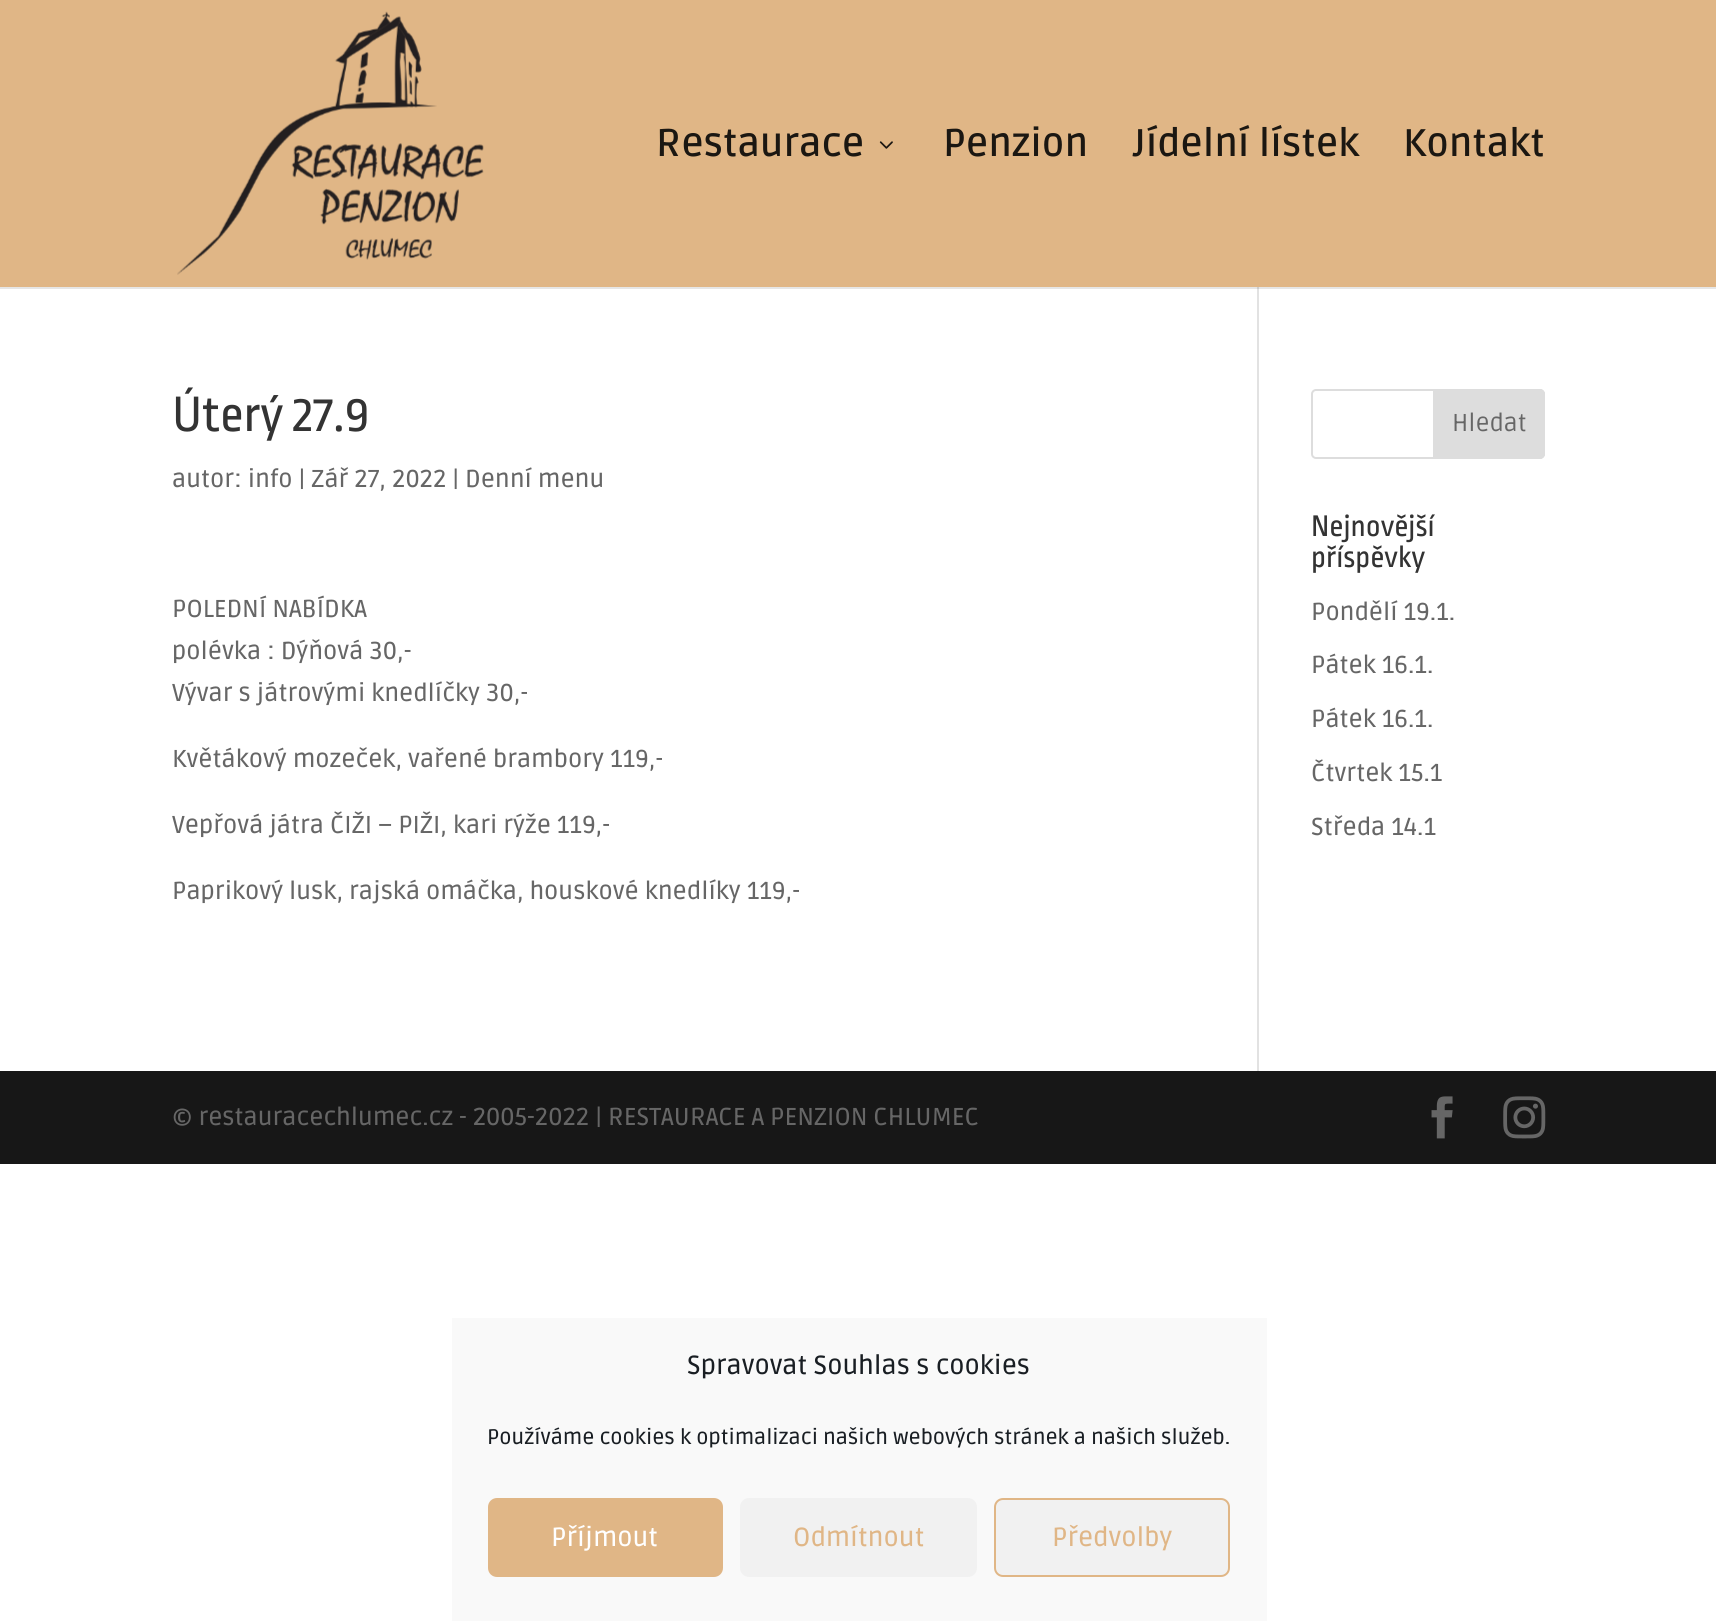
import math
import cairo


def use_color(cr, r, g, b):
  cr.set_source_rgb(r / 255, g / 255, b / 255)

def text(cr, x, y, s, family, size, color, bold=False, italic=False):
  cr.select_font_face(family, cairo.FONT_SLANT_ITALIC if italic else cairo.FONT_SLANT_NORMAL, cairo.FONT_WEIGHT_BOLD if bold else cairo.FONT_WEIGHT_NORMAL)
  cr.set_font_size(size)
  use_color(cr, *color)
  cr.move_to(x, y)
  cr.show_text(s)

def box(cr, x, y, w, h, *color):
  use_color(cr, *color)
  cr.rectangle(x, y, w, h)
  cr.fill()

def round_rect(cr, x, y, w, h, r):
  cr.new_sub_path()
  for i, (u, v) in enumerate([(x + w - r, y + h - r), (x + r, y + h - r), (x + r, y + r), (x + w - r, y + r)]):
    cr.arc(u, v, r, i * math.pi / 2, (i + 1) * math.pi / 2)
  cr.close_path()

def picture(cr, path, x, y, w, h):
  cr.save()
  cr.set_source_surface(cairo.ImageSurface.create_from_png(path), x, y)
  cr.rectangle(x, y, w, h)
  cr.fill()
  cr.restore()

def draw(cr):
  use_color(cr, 255, 255, 255)
  cr.paint()
  box(cr, 1257, 287, 2, 784, 226, 226, 226)
  cr.set_source_rgba(0, 0, 0, 0.1)
  cr.new_path()
  cr.move_to(0, 287)
  cr.line_to(0, 289)
  cr.line_to(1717, 289)
  cr.line_to(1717, 2)
  cr.line_to(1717, 287)
  cr.close_path()
  cr.fill()
  box(cr, 0, 0, 1716, 287, 224, 182, 134)
  picture(cr, "img_01.png", 177, 11, 307, 264)
  picture(cr, "img_02.png", 879, 141, 14, 8)
  round_rect(cr, 1312, 390, 232, 68, 4)
  use_color(cr, 221, 221, 221)
  cr.stroke()
  cr.new_path()
  cr.move_to(1434, 390)
  cr.line_to(1540, 390)
  cr.curve_to(1542, 390, 1544, 392, 1544, 394)
  cr.line_to(1544, 454)
  cr.curve_to(1544, 456, 1542, 458, 1540, 458)
  cr.line_to(1434, 458)
  cr.close_path()
  cr.fill_preserve()
  cr.stroke()
  box(cr, 0, 1071, 1716, 93, 23, 23, 23)
  picture(cr, "img_03.png", 1431, 1096, 22, 43)
  picture(cr, "img_04.png", 1503, 1096, 43, 43)
  box(cr, 452, 1318, 815, 303, 249, 249, 249)
  use_color(cr, 224, 182, 134)
  round_rect(cr, 489, 1499, 233, 77, 8)
  cr.fill_preserve()
  cr.stroke()
  use_color(cr, 241, 241, 241)
  round_rect(cr, 740, 1498, 237, 79, 9)
  cr.fill()
  round_rect(cr, 995, 1499, 234, 77, 8)
  cr.fill_preserve()
  use_color(cr, 224, 182, 134)
  cr.stroke()
  text(cr, 656, 156, "Restaurace", "Ruda SemiBold", 38.5, (27, 23, 18))
  text(cr, 943, 156, "Penzion", "Ruda SemiBold", 38.5, (27, 23, 18))
  text(cr, 1133, 156, "Jídelní lístek", "Ruda SemiBold", 38.5, (27, 23, 18))
  text(cr, 1403, 156, "Kontakt", "Ruda SemiBold", 38.5, (27, 23, 18))
  text(cr, 172, 431, "Úterý 27.9", "Ropa Sans", 52.5, (51, 51, 51))
  text(cr, 172, 487, "autor: info | Zář 27, 2022 | Denní menu", "Ruda Medium", 24.5, (102, 102, 102))
  text(cr, 172, 617, "POLEDNÍ NABÍDKA", "Ruda Medium", 24.5, (102, 102, 102))
  text(cr, 172, 659, "polévka : Dýňová 30,-", "Ruda Medium", 24.5, (102, 102, 102))
  text(cr, 172, 701, "Vývar s játrovými knedlíčky 30,-", "Ruda Medium", 24.5, (102, 102, 102))
  text(cr, 172, 767, "Květákový mozeček, vařené brambory 119,-", "Ruda Medium", 24.5, (102, 102, 102))
  text(cr, 172, 833, "Vepřová játra ČIŽI – PIŽI, kari rýže 119,-", "Ruda Medium", 24.5, (102, 102, 102))
  text(cr, 172, 899, "Paprikový lusk, rajská omáčka, houskové knedlíky 119,-", "Ruda Medium", 24.5, (102, 102, 102))
  text(cr, 1452, 431, "Hledat", "Ruda", 24.5, (102, 102, 102))
  text(cr, 1311, 536, "Nejnovější", "Ropa Sans", 31.5, (51, 51, 51))
  text(cr, 1311, 567, "příspěvky", "Ropa Sans", 31.5, (51, 51, 51))
  text(cr, 1311, 620, "Pondělí 19.1.", "Ruda Medium", 24.5, (102, 102, 102))
  text(cr, 1311, 673, "Pátek 16.1.", "Ruda Medium", 24.5, (102, 102, 102))
  text(cr, 1311, 727, "Pátek 16.1.", "Ruda Medium", 24.5, (102, 102, 102))
  text(cr, 1311, 781, "Čtvrtek 15.1", "Ruda Medium", 24.5, (102, 102, 102))
  text(cr, 1311, 835, "Středa 14.1", "Ruda Medium", 24.5, (102, 102, 102))
  text(cr, 172, 1125, "© restauracechlumec.cz - 2005-2022 | RESTAURACE A PENZION CHLUMEC", "Ruda Medium", 24.5, (102, 102, 102))
  text(cr, 687, 1374, "Spravovat Souhlas s cookies", "Ruda Medium", 26.25, (25, 30, 35))
  text(cr, 487, 1444, "Používáme cookies k optimalizaci našich webových stránek a našich služeb.", "Ruda Medium", 21, (25, 30, 35))
  text(cr, 551, 1546, "Příjmout", "Ruda Medium", 26.25, (255, 255, 255))
  text(cr, 793, 1546, "Odmítnout", "Ruda Medium", 26.25, (224, 182, 134))
  text(cr, 1052, 1546, "Předvolby", "Ruda Medium", 26.25, (224, 182, 134))


surface = cairo.ImageSurface(cairo.FORMAT_RGB24, 1716, 1621)
cr = cairo.Context(surface)
options = cairo.FontOptions()
options.set_hint_metrics(cairo.HINT_METRICS_OFF)
options.set_hint_style(cairo.HINT_STYLE_NONE)
cr.set_font_options(options)
cr.set_miter_limit(4)
draw(cr)
surface.write_to_png("out.png")
